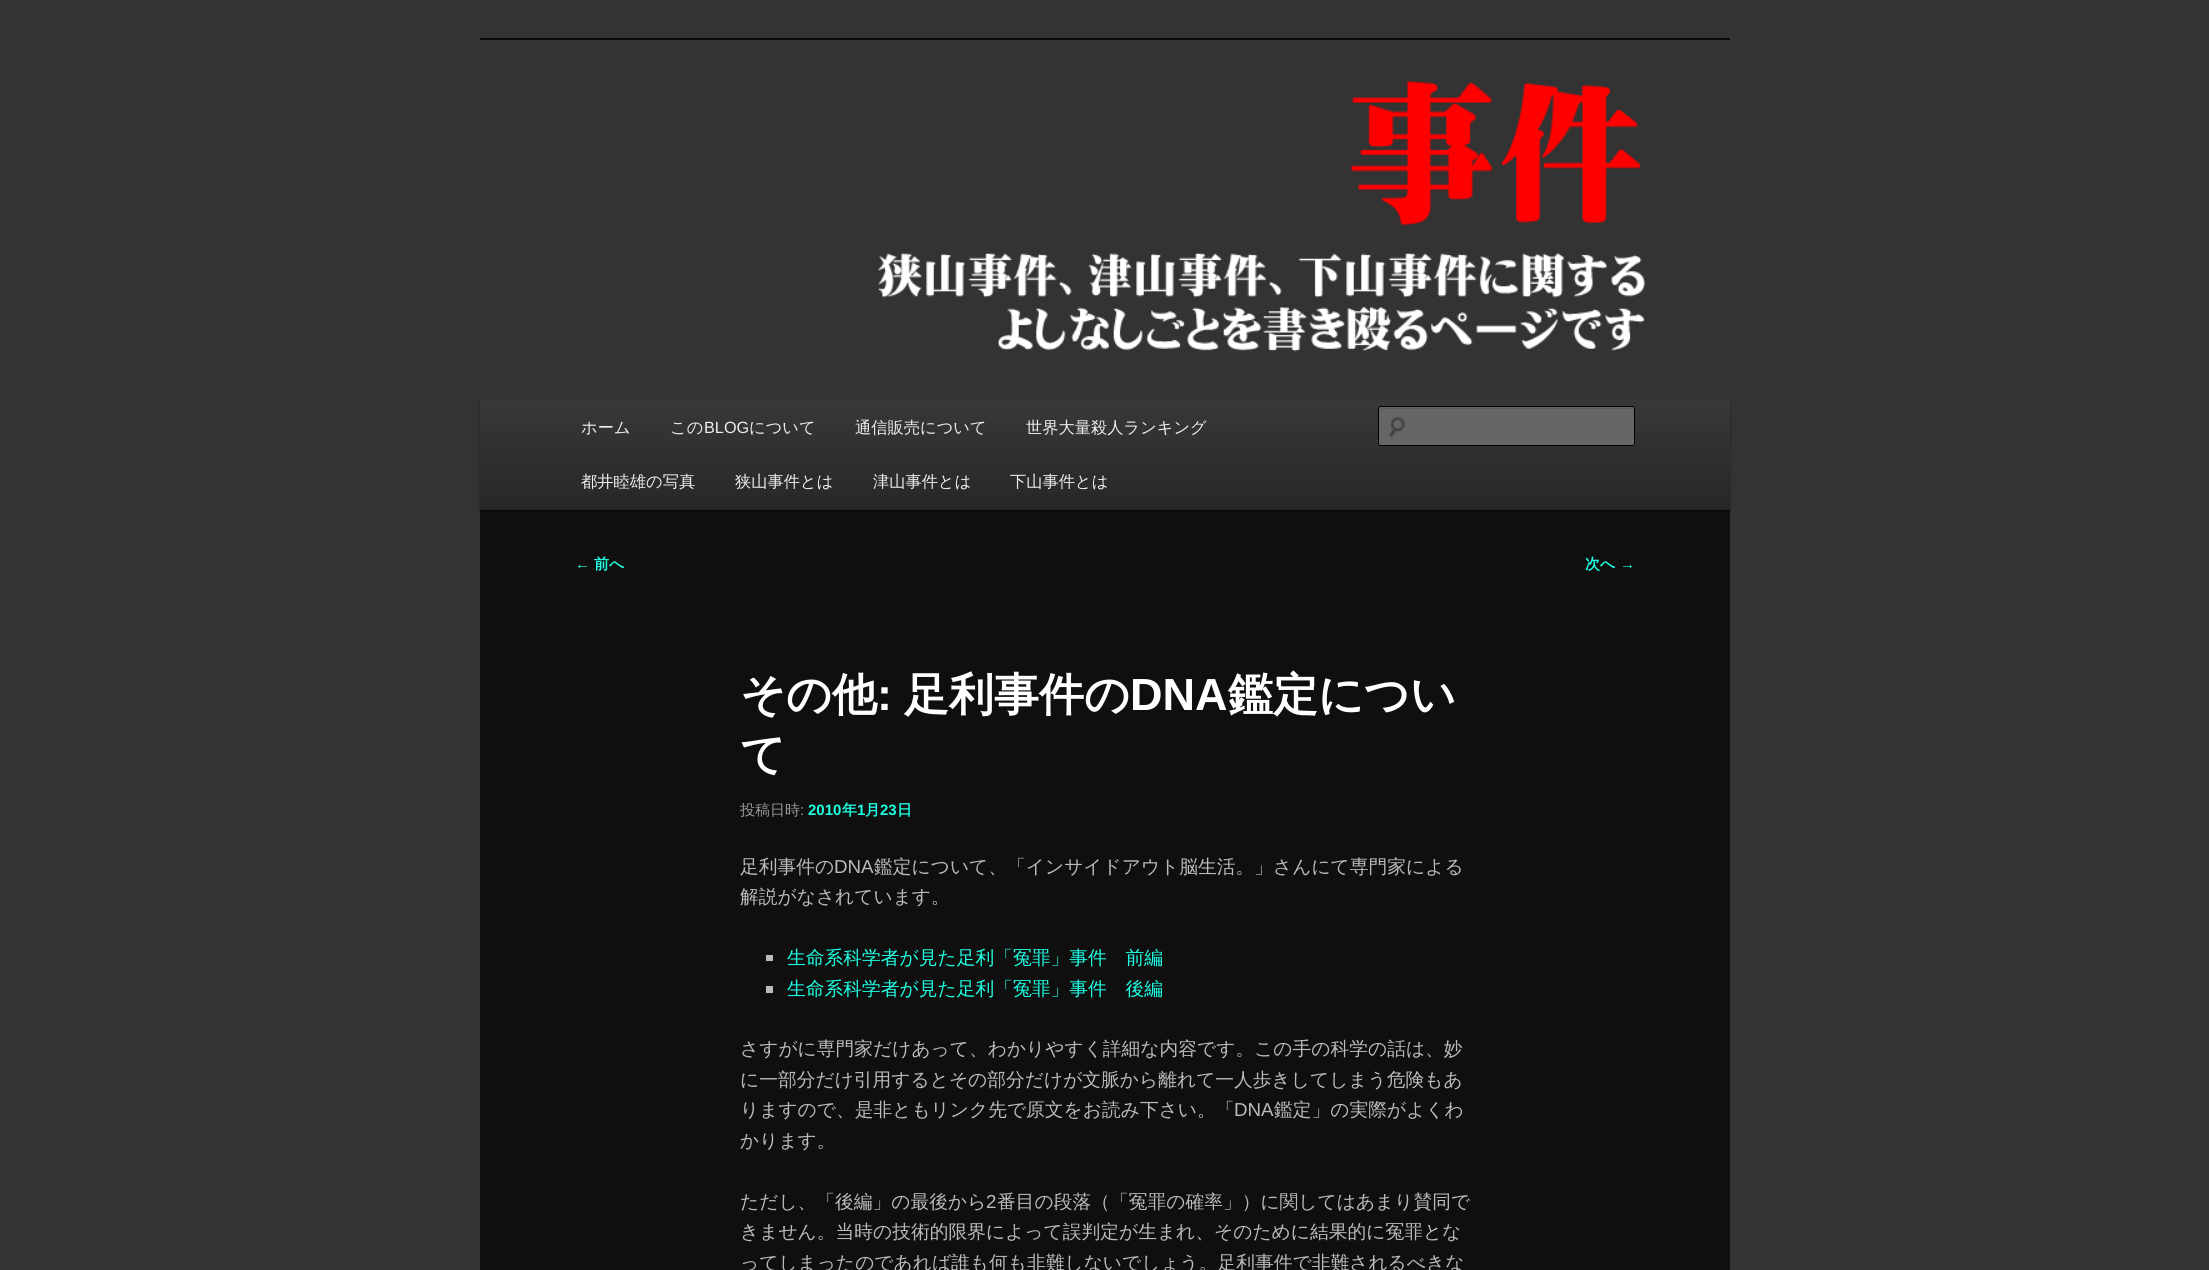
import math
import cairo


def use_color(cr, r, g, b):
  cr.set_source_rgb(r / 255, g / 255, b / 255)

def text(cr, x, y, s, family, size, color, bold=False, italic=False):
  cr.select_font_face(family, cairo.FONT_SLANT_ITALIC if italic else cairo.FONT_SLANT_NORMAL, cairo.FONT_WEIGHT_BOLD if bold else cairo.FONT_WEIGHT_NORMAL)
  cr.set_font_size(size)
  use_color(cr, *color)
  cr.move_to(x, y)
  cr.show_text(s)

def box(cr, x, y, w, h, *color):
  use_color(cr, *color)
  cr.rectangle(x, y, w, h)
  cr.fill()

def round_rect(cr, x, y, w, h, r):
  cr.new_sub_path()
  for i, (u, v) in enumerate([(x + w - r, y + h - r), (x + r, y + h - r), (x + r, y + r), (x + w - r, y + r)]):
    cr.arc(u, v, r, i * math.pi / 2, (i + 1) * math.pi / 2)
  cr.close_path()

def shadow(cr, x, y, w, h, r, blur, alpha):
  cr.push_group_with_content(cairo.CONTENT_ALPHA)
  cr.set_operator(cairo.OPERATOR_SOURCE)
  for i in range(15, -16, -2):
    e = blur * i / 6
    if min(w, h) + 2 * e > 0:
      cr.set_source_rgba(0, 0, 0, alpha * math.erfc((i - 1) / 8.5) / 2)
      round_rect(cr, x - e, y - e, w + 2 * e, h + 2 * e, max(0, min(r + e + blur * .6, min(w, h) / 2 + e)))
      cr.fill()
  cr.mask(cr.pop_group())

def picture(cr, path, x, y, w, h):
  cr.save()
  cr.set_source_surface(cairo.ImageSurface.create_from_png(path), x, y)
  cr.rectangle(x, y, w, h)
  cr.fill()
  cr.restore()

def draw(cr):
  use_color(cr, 51, 51, 51)
  cr.paint()
  box(cr, 480, 510, 1250, 760, 15, 15, 15)
  box(cr, 480, 38, 1250, 2, 10, 10, 10)
  use_color(cr, 0, 0, 0)
  shadow(cr, 480, 401, 1250, 110, 0, 1, 0.4)
  picture(cr, "img_01.png", 480, 40, 1250, 360)
  gradient = cairo.LinearGradient(1105, 400, 1105, 509)
  gradient.add_color_stop_rgba(0, 0.22, 0.22, 0.22, 1)
  gradient.add_color_stop_rgba(1, 0.153, 0.153, 0.153, 1)
  cr.set_source(gradient)
  cr.rectangle(480, 400, 1250, 109)
  cr.fill()
  box(cr, 480, 509, 1250, 1, 34, 34, 34)
  use_color(cr, 102, 102, 102)
  round_rect(cr, 1378, 406, 257, 40, 2.5)
  cr.fill()
  picture(cr, "img_02.png", 1389, 417, 16, 21)
  use_color(cr, 92, 92, 92)
  cr.new_path()
  cr.move_to(1380, 409)
  cr.line_to(1632, 409)
  cr.curve_to(1633, 409, 1634, 409, 1634, 410)
  cr.line_to(1634, 408)
  cr.line_to(1380, 408)
  cr.curve_to(1379, 408, 1379, 409, 1379, 410)
  cr.curve_to(1379, 409, 1379, 409, 1380, 409)
  cr.close_path()
  cr.fill()
  round_rect(cr, 1378.5, 406.5, 256, 39, 2)
  use_color(cr, 0, 0, 0)
  cr.set_line_width(1)
  cr.stroke()
  box(cr, 766, 955, 7, 6, 187, 187, 187)
  box(cr, 766, 986, 7, 7, 187, 187, 187)
  text(cr, 581, 433, "ホーム", "WenQuanYi Zen Hei Medium", 16.25, (238, 238, 238))
  text(cr, 670, 433, "この", "WenQuanYi Zen Hei Medium", 16.25, (238, 238, 238))
  text(cr, 704, 433, "BLOG", "Liberation Sans", 16.25, (238, 238, 238))
  text(cr, 749, 433, "について", "WenQuanYi Zen Hei Medium", 16.25, (238, 238, 238))
  text(cr, 855, 433, "通信販売について", "WenQuanYi Zen Hei Medium", 16.25, (238, 238, 238))
  text(cr, 1026, 433, "世界大量殺人ランキング", "WenQuanYi Zen Hei Medium", 16.25, (238, 238, 238))
  text(cr, 581, 487, "都井睦雄の写真", "WenQuanYi Zen Hei Medium", 16.25, (238, 238, 238))
  text(cr, 735, 487, "狭山事件とは", "WenQuanYi Zen Hei Medium", 16.25, (238, 238, 238))
  text(cr, 873, 487, "津山事件とは", "WenQuanYi Zen Hei Medium", 16.25, (238, 238, 238))
  text(cr, 1010, 487, "下山事件とは", "WenQuanYi Zen Hei Medium", 16.25, (238, 238, 238))
  text(cr, 575, 569, "←", "Liberation Sans", 15, (30, 255, 228))
  text(cr, 594, 569, "前へ", "WenQuanYi Zen Hei", 15, (30, 255, 228), bold=True)
  text(cr, 1585, 569, "次へ", "WenQuanYi Zen Hei", 15, (30, 255, 228), bold=True)
  text(cr, 1620, 569, "→", "Liberation Sans", 15, (30, 255, 228))
  text(cr, 740, 710, "その他", "WenQuanYi Zen Hei", 45, (255, 255, 255), bold=True)
  text(cr, 877, 710, ":", "Liberation Sans", 45, (255, 255, 255), bold=True)
  text(cr, 904, 710, "足利事件の", "WenQuanYi Zen Hei", 45, (255, 255, 255), bold=True)
  text(cr, 1130, 710, "DNA", "Liberation Sans", 45, (255, 255, 255), bold=True)
  text(cr, 1228, 710, "鑑定につい", "WenQuanYi Zen Hei", 45, (255, 255, 255), bold=True)
  text(cr, 740, 770, "て", "WenQuanYi Zen Hei", 45, (255, 255, 255), bold=True)
  text(cr, 740, 815, "投稿日時", "WenQuanYi Zen Hei Medium", 15, (153, 153, 153))
  text(cr, 800, 815, ":", "Liberation Sans", 15, (153, 153, 153))
  text(cr, 808, 815, "2010", "Liberation Sans", 15, (30, 255, 228), bold=True)
  text(cr, 842, 815, "年", "WenQuanYi Zen Hei", 15, (30, 255, 228), bold=True)
  text(cr, 857, 815, "1", "Liberation Sans", 15, (30, 255, 228), bold=True)
  text(cr, 865, 815, "月", "WenQuanYi Zen Hei", 15, (30, 255, 228), bold=True)
  text(cr, 880, 815, "23", "Liberation Sans", 15, (30, 255, 228), bold=True)
  text(cr, 897, 815, "日", "WenQuanYi Zen Hei", 15, (30, 255, 228), bold=True)
  text(cr, 740, 873, "足利事件の", "WenQuanYi Zen Hei Medium", 18.75, (187, 187, 187))
  text(cr, 834, 873, "DNA", "Liberation Sans", 18.75, (187, 187, 187))
  text(cr, 874, 873, "鑑定について、「インサイドアウト脳生活。」さんにて専門家による", "WenQuanYi Zen Hei Medium", 18.75, (187, 187, 187))
  text(cr, 740, 903, "解説がなされています。", "WenQuanYi Zen Hei Medium", 18.75, (187, 187, 187))
  text(cr, 787, 964, "生命系科学者が見た足利「冤罪」事件　前編", "WenQuanYi Zen Hei Medium", 18.75, (30, 255, 228))
  text(cr, 787, 995, "生命系科学者が見た足利「冤罪」事件　後編", "WenQuanYi Zen Hei Medium", 18.75, (30, 255, 228))
  text(cr, 740, 1055, "さすがに専門家だけあって、わかりやすく詳細な内容です。この手の科学の話は、妙", "WenQuanYi Zen Hei Medium", 18.75, (187, 187, 187))
  text(cr, 740, 1086, "に一部分だけ引用するとその部分だけが文脈から離れて一人歩きしてしまう危険もあ", "WenQuanYi Zen Hei Medium", 18.75, (187, 187, 187))
  text(cr, 740, 1116, "りますので、是非ともリンク先で原文をお読み下さい。「", "WenQuanYi Zen Hei Medium", 18.75, (187, 187, 187))
  text(cr, 1234, 1116, "DNA", "Liberation Sans", 18.75, (187, 187, 187))
  text(cr, 1274, 1116, "鑑定」の実際がよくわ", "WenQuanYi Zen Hei Medium", 18.75, (187, 187, 187))
  text(cr, 740, 1147, "かります。", "WenQuanYi Zen Hei Medium", 18.75, (187, 187, 187))
  text(cr, 740, 1208, "ただし、「後編」の最後から", "WenQuanYi Zen Hei Medium", 18.75, (187, 187, 187))
  text(cr, 986, 1208, "2", "Liberation Sans", 18.75, (187, 187, 187))
  text(cr, 997, 1208, "番目の段落（「冤罪の確率」）に関してはあまり賛同で", "WenQuanYi Zen Hei Medium", 18.75, (187, 187, 187))
  text(cr, 740, 1238, "きません。当時の技術的限界によって誤判定が生まれ、そのために結果的に冤罪とな", "WenQuanYi Zen Hei Medium", 18.75, (187, 187, 187))
  text(cr, 740, 1269, "ってしまったのであれば誰も何も非難しないでしょう。足利事件で非難されるべきな", "WenQuanYi Zen Hei Medium", 18.75, (187, 187, 187))


surface = cairo.ImageSurface(cairo.FORMAT_RGB24, 2209, 1270)
cr = cairo.Context(surface)
options = cairo.FontOptions()
options.set_hint_metrics(cairo.HINT_METRICS_OFF)
options.set_hint_style(cairo.HINT_STYLE_NONE)
cr.set_font_options(options)
cr.set_miter_limit(4)
draw(cr)
surface.write_to_png("out.png")
